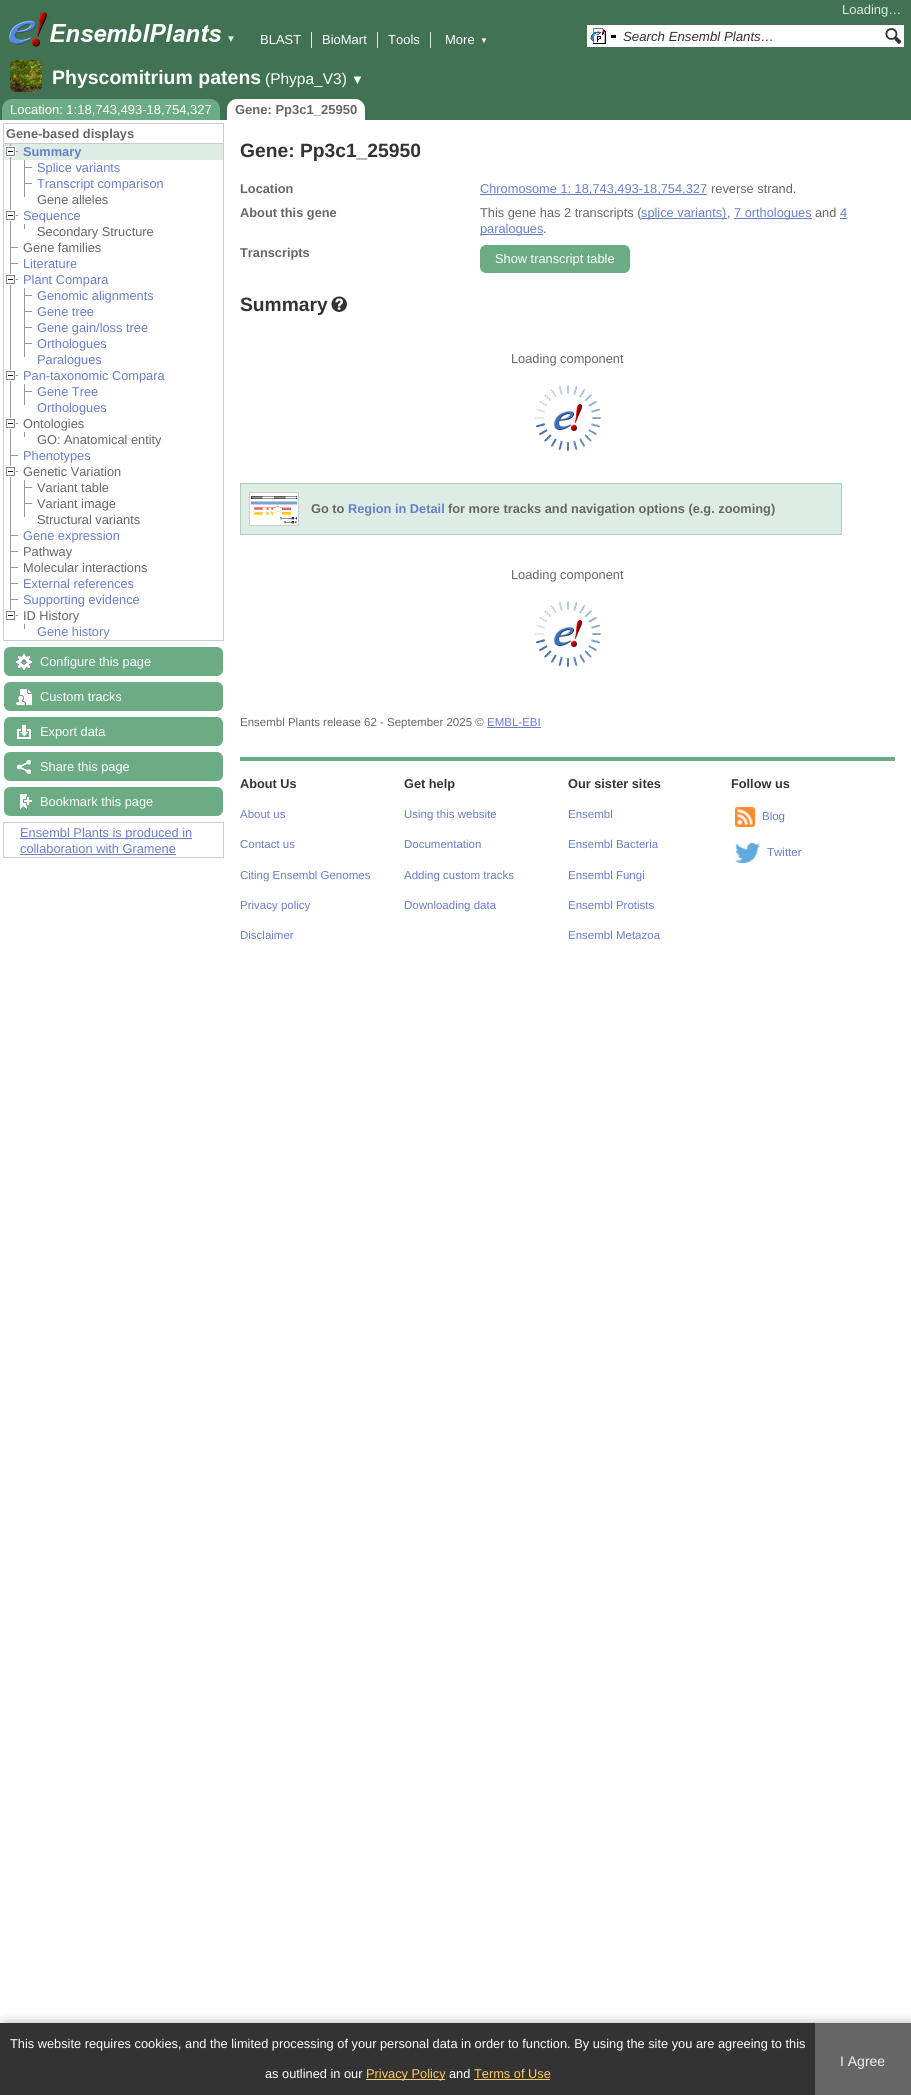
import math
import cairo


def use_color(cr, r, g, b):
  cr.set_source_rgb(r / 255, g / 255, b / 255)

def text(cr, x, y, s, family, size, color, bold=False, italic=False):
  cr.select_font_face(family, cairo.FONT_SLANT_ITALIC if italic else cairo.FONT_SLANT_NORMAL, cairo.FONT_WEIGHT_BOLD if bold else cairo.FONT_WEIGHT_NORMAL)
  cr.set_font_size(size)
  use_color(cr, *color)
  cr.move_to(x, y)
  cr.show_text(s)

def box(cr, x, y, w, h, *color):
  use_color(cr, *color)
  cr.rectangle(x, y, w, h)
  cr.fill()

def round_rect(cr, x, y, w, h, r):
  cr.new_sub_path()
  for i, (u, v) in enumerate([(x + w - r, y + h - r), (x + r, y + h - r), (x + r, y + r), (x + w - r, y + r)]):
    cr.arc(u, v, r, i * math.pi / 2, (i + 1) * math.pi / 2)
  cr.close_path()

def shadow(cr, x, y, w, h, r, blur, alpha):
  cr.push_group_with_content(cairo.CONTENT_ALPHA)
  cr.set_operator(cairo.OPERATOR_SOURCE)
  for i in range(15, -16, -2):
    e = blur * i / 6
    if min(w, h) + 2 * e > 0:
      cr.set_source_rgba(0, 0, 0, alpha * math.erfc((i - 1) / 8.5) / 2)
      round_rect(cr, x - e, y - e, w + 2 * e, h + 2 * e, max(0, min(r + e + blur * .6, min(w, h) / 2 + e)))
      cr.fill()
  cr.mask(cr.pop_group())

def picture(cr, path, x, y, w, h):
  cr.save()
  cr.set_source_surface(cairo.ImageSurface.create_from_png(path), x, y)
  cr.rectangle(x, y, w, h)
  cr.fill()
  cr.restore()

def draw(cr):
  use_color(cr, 255, 255, 255)
  cr.paint()
  box(cr, 0, 0, 911, 120, 64, 114, 83)
  picture(cr, "img_01.png", 9, 12, 38, 35)
  picture(cr, "img_02.png", 49, 15, 173, 27)
  box(cr, 311, 32, 1, 16, 222, 237, 228)
  box(cr, 377, 32, 1, 16, 222, 237, 228)
  box(cr, 430, 32, 1, 16, 222, 237, 228)
  box(cr, 587, 25, 317, 22, 255, 255, 255)
  picture(cr, "img_03.png", 590, 28, 16, 16)
  box(cr, 611, 35, 5, 3, 0, 0, 0)
  picture(cr, "img_04.png", 885, 28, 16, 16)
  picture(cr, "img_05.png", 10, 60, 32, 32)
  use_color(cr, 108, 172, 132)
  cr.new_path()
  cr.move_to(12, 99)
  cr.line_to(210, 99)
  cr.curve_to(215.5, 99, 220, 103.5, 220, 109)
  cr.line_to(220, 120)
  cr.line_to(2, 120)
  cr.line_to(2, 109)
  cr.curve_to(2, 103.5, 6.5, 99, 12, 99)
  cr.close_path()
  cr.fill()
  use_color(cr, 255, 255, 255)
  cr.new_path()
  cr.move_to(237, 99)
  cr.line_to(355, 99)
  cr.curve_to(360.5, 99, 365, 103.5, 365, 109)
  cr.line_to(365, 120)
  cr.line_to(227, 120)
  cr.line_to(227, 109)
  cr.curve_to(227, 103.5, 231.5, 99, 237, 99)
  cr.close_path()
  cr.fill()
  box(cr, 3, 123, 221, 1, 204, 204, 204)
  box(cr, 223, 123, 1, 20, 204, 204, 204)
  box(cr, 3, 123, 1, 20, 204, 204, 204)
  cr.rectangle(3.5, 143.5, 220, 497)
  cr.set_line_width(1)
  cr.stroke()
  box(cr, 4, 144, 219, 16, 222, 237, 228)
  box(cr, 10, 144, 1, 469, 153, 153, 153)
  picture(cr, "img_06.png", 5, 146, 13, 11)
  box(cr, 24, 160, 1, 37, 153, 153, 153)
  box(cr, 25, 167, 7, 1, 153, 153, 153)
  box(cr, 25, 183, 7, 1, 153, 153, 153)
  picture(cr, "img_07.png", 6, 210, 12, 11)
  box(cr, 24, 224, 1, 5, 153, 153, 153)
  box(cr, 11, 247, 7, 1, 153, 153, 153)
  box(cr, 11, 263, 7, 1, 153, 153, 153)
  picture(cr, "img_07.png", 6, 274, 12, 11)
  box(cr, 24, 288, 1, 69, 153, 153, 153)
  box(cr, 25, 295, 7, 1, 153, 153, 153)
  box(cr, 25, 311, 7, 1, 153, 153, 153)
  box(cr, 25, 327, 7, 1, 153, 153, 153)
  box(cr, 25, 343, 7, 1, 153, 153, 153)
  picture(cr, "img_07.png", 6, 370, 12, 11)
  box(cr, 24, 384, 1, 21, 153, 153, 153)
  box(cr, 25, 391, 7, 1, 153, 153, 153)
  picture(cr, "img_07.png", 6, 418, 12, 11)
  box(cr, 24, 432, 1, 5, 153, 153, 153)
  box(cr, 11, 455, 7, 1, 153, 153, 153)
  picture(cr, "img_07.png", 6, 466, 12, 11)
  box(cr, 24, 480, 1, 37, 153, 153, 153)
  box(cr, 25, 487, 7, 1, 153, 153, 153)
  box(cr, 25, 503, 7, 1, 153, 153, 153)
  box(cr, 11, 535, 7, 1, 153, 153, 153)
  box(cr, 11, 551, 7, 1, 153, 153, 153)
  box(cr, 11, 567, 7, 1, 153, 153, 153)
  box(cr, 11, 583, 7, 1, 153, 153, 153)
  box(cr, 11, 599, 7, 1, 153, 153, 153)
  picture(cr, "img_08.png", 6, 610, 12, 10)
  box(cr, 24, 624, 1, 5, 153, 153, 153)
  use_color(cr, 108, 172, 132)
  round_rect(cr, 4, 647, 219, 29, 6)
  cr.fill()
  picture(cr, "img_09.png", 16, 654, 16, 16)
  round_rect(cr, 4, 682, 219, 29, 6)
  cr.fill()
  picture(cr, "img_10.png", 16, 689, 16, 16)
  round_rect(cr, 4, 717, 219, 29, 6)
  cr.fill()
  picture(cr, "img_11.png", 17, 725, 14, 14)
  round_rect(cr, 4, 752, 219, 29, 6)
  cr.fill()
  picture(cr, "img_12.png", 17, 760, 14, 14)
  round_rect(cr, 4, 787, 219, 29, 6)
  cr.fill()
  picture(cr, "img_13.png", 20, 794, 12, 16)
  cr.rectangle(3.5, 822.5, 220, 35)
  use_color(cr, 204, 204, 204)
  cr.stroke()
  box(cr, 20, 838, 172, 1, 105, 126, 201)
  box(cr, 20, 854, 156, 1, 105, 126, 201)
  box(cr, 480, 194, 227, 1, 105, 126, 201)
  box(cr, 734, 218, 78, 1, 105, 126, 201)
  box(cr, 840, 218, 7, 1, 105, 126, 201)
  box(cr, 480, 234, 63, 1, 105, 126, 201)
  use_color(cr, 108, 172, 132)
  round_rect(cr, 480, 245, 150, 28, 6)
  cr.fill()
  picture(cr, "img_14.png", 331, 296, 16, 16)
  picture(cr, "img_15.png", 535, 385, 66, 66)
  use_color(cr, 222, 237, 228)
  cr.rectangle(240.5, 483.5, 601, 51)
  cr.fill_preserve()
  use_color(cr, 173, 209, 186)
  cr.stroke()
  cr.rectangle(249.5, 492.5, 49, 33)
  use_color(cr, 204, 204, 204)
  cr.stroke()
  picture(cr, "img_16.png", 250, 493, 48, 32)
  picture(cr, "img_15.png", 535, 601, 66, 66)
  box(cr, 487, 727, 54, 1, 105, 126, 201)
  box(cr, 240, 757, 655, 4, 108, 172, 132)
  picture(cr, "img_17.png", 735, 807, 20, 20)
  picture(cr, "img_18.png", 735, 843, 25, 20)
  use_color(cr, 102, 102, 102)
  shadow(cr, 5, 2028, 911, 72, 0, 7.5, 1)
  box(cr, 0, 2023, 815, 72, 51, 51, 51)
  box(cr, 366, 2079, 79, 1, 255, 204, 102)
  box(cr, 474, 2079, 76, 1, 255, 204, 102)
  box(cr, 815, 2023, 96, 72, 102, 102, 102)
  text(cr, 226, 42, "▼", "Liberation Sans", 10, (222, 237, 228))
  text(cr, 842, 14, "Loading…", "Liberation Sans", 13, (222, 237, 228))
  text(cr, 260, 44, "BLAST", "Liberation Sans", 13, (255, 255, 255))
  text(cr, 322, 44, "BioMart", "Liberation Sans", 13, (255, 255, 255))
  text(cr, 388, 44, "Tools", "Liberation Sans", 13, (255, 255, 255))
  text(cr, 445, 44, "More", "Liberation Sans", 13, (255, 255, 255))
  text(cr, 480, 43, "▼", "Liberation Sans", 8, (255, 255, 255))
  text(cr, 623, 41, "Search Ensembl Plants…", "Liberation Sans", 13.25, (51, 51, 51), italic=True)
  text(cr, 52, 84, "Physcomitrium patens", "Liberation Sans", 19.5, (255, 255, 255), bold=True)
  text(cr, 265, 84, "(Phypa_V3)", "Liberation Sans", 15.5, (255, 255, 255))
  text(cr, 351, 84, "▼", "Liberation Sans", 13, (255, 255, 255))
  text(cr, 10, 114, "Location: 1:18,743,493-18,754,327", "Liberation Sans", 13, (255, 255, 255))
  text(cr, 235, 114, "Gene: Pp3c1_25950", "Liberation Sans", 13, (102, 102, 102), bold=True)
  text(cr, 6, 138, "Gene-based displays", "Liberation Sans", 12.8, (102, 102, 102), bold=True)
  text(cr, 23, 156, "Summary", "Liberation Sans", 12.8, (105, 126, 201), bold=True)
  text(cr, 37, 172, "Splice variants", "Liberation Sans", 12.8, (105, 126, 201))
  text(cr, 37, 188, "Transcript comparison", "Liberation Sans", 12.8, (105, 126, 201))
  text(cr, 37, 204, "Gene alleles", "Liberation Sans", 12.8, (102, 102, 102))
  text(cr, 23, 220, "Sequence", "Liberation Sans", 12.8, (105, 126, 201))
  text(cr, 37, 236, "Secondary Structure", "Liberation Sans", 12.8, (102, 102, 102))
  text(cr, 23, 252, "Gene families", "Liberation Sans", 12.8, (102, 102, 102))
  text(cr, 23, 268, "Literature", "Liberation Sans", 12.8, (105, 126, 201))
  text(cr, 23, 284, "Plant Compara", "Liberation Sans", 12.8, (105, 126, 201))
  text(cr, 37, 300, "Genomic alignments", "Liberation Sans", 12.8, (105, 126, 201))
  text(cr, 37, 316, "Gene tree", "Liberation Sans", 12.8, (105, 126, 201))
  text(cr, 37, 332, "Gene gain/loss tree", "Liberation Sans", 12.8, (105, 126, 201))
  text(cr, 37, 348, "Orthologues", "Liberation Sans", 12.8, (105, 126, 201))
  text(cr, 37, 364, "Paralogues", "Liberation Sans", 12.8, (105, 126, 201))
  text(cr, 23, 380, "Pan-taxonomic Compara", "Liberation Sans", 12.8, (105, 126, 201))
  text(cr, 37, 396, "Gene Tree", "Liberation Sans", 12.8, (105, 126, 201))
  text(cr, 37, 412, "Orthologues", "Liberation Sans", 12.8, (105, 126, 201))
  text(cr, 23, 428, "Ontologies", "Liberation Sans", 12.8, (102, 102, 102))
  text(cr, 37, 444, "GO: Anatomical entity", "Liberation Sans", 12.8, (102, 102, 102))
  text(cr, 23, 460, "Phenotypes", "Liberation Sans", 12.8, (105, 126, 201))
  text(cr, 23, 476, "Genetic Variation", "Liberation Sans", 12.8, (102, 102, 102))
  text(cr, 37, 492, "Variant table", "Liberation Sans", 12.8, (102, 102, 102))
  text(cr, 37, 508, "Variant image", "Liberation Sans", 12.8, (102, 102, 102))
  text(cr, 37, 524, "Structural variants", "Liberation Sans", 12.8, (102, 102, 102))
  text(cr, 23, 540, "Gene expression", "Liberation Sans", 12.8, (105, 126, 201))
  text(cr, 23, 556, "Pathway", "Liberation Sans", 12.8, (102, 102, 102))
  text(cr, 23, 572, "Molecular interactions", "Liberation Sans", 12.8, (102, 102, 102))
  text(cr, 23, 588, "External references", "Liberation Sans", 12.8, (105, 126, 201))
  text(cr, 23, 604, "Supporting evidence", "Liberation Sans", 12.8, (105, 126, 201))
  text(cr, 23, 620, "ID History", "Liberation Sans", 12.8, (102, 102, 102))
  text(cr, 37, 636, "Gene history", "Liberation Sans", 12.8, (105, 126, 201))
  text(cr, 40, 666, "Configure this page", "Liberation Sans", 12.8, (255, 255, 255))
  text(cr, 40, 701, "Custom tracks", "Liberation Sans", 12.8, (255, 255, 255))
  text(cr, 40, 736, "Export data", "Liberation Sans", 12.8, (255, 255, 255))
  text(cr, 40, 771, "Share this page", "Liberation Sans", 12.8, (255, 255, 255))
  text(cr, 40, 806, "Bookmark this page", "Liberation Sans", 12.8, (255, 255, 255))
  text(cr, 20, 837, "Ensembl Plants is produced in", "Liberation Sans", 12.8, (105, 126, 201))
  text(cr, 20, 853, "collaboration with Gramene", "Liberation Sans", 12.8, (105, 126, 201))
  text(cr, 240, 157, "Gene: Pp3c1_25950", "Liberation Sans", 19.25, (51, 51, 51), bold=True)
  text(cr, 240, 193, "Location", "Liberation Sans", 12.8, (102, 102, 102), bold=True)
  text(cr, 480, 193, "Chromosome 1: 18,743,493-18,754,327", "Liberation Sans", 12.8, (105, 126, 201))
  text(cr, 711, 193, "reverse strand.", "Liberation Sans", 12.8, (102, 102, 102))
  text(cr, 240, 217, "About this gene", "Liberation Sans", 12.8, (102, 102, 102), bold=True)
  text(cr, 480, 217, "This gene has 2 transcripts (", "Liberation Sans", 12.8, (102, 102, 102))
  box(cr, 641, 218, 86, 1, 105, 126, 201)
  text(cr, 641, 217, "splice variants)", "Liberation Sans", 12.8, (105, 126, 201))
  text(cr, 727, 217, ",", "Liberation Sans", 12.8, (102, 102, 102))
  text(cr, 734, 217, "7 orthologues", "Liberation Sans", 12.8, (105, 126, 201))
  text(cr, 815, 217, "and", "Liberation Sans", 12.8, (102, 102, 102))
  text(cr, 840, 217, "4", "Liberation Sans", 12.8, (105, 126, 201))
  text(cr, 480, 233, "paralogues", "Liberation Sans", 12.8, (105, 126, 201))
  text(cr, 543, 233, ".", "Liberation Sans", 12.8, (102, 102, 102))
  text(cr, 240, 257, "Transcripts", "Liberation Sans", 12.8, (102, 102, 102), bold=True)
  text(cr, 495, 263, "Show transcript table", "Liberation Sans", 12.8, (255, 255, 255))
  text(cr, 240, 311, "Summary", "Liberation Sans", 19.25, (51, 51, 51), bold=True)
  text(cr, 511, 363, "Loading component", "Liberation Sans", 12.8, (102, 102, 102))
  text(cr, 311, 513, "Go to", "Liberation Sans", 12.8, (102, 102, 102), bold=True)
  text(cr, 348, 513, "Region in Detail", "Liberation Sans", 12.8, (105, 126, 201), bold=True)
  text(cr, 448, 513, "for more tracks and navigation options (e.g. zooming)", "Liberation Sans", 12.8, (102, 102, 102), bold=True)
  text(cr, 511, 579, "Loading component", "Liberation Sans", 12.8, (102, 102, 102))
  text(cr, 240, 726, "Ensembl Plants release 62 - September 2025 ©", "Liberation Sans", 11.5, (102, 102, 102))
  text(cr, 487, 726, "EMBL-EBI", "Liberation Sans", 11.5, (105, 126, 201))
  text(cr, 240, 788, "About Us", "Liberation Sans", 12.75, (51, 51, 51), bold=True)
  text(cr, 240, 818, "About us", "Liberation Sans", 11.5, (105, 126, 201))
  text(cr, 240, 848, "Contact us", "Liberation Sans", 11.5, (105, 126, 201))
  text(cr, 240, 879, "Citing Ensembl Genomes", "Liberation Sans", 11.5, (105, 126, 201))
  text(cr, 240, 909, "Privacy policy", "Liberation Sans", 11.5, (105, 126, 201))
  text(cr, 240, 939, "Disclaimer", "Liberation Sans", 11.5, (105, 126, 201))
  text(cr, 404, 788, "Get help", "Liberation Sans", 12.75, (51, 51, 51), bold=True)
  text(cr, 404, 818, "Using this website", "Liberation Sans", 11.5, (105, 126, 201))
  text(cr, 404, 848, "Documentation", "Liberation Sans", 11.5, (105, 126, 201))
  text(cr, 404, 879, "Adding custom tracks", "Liberation Sans", 11.5, (105, 126, 201))
  text(cr, 404, 909, "Downloading data", "Liberation Sans", 11.5, (105, 126, 201))
  text(cr, 568, 788, "Our sister sites", "Liberation Sans", 12.75, (51, 51, 51), bold=True)
  text(cr, 568, 818, "Ensembl", "Liberation Sans", 11.5, (105, 126, 201))
  text(cr, 568, 848, "Ensembl Bacteria", "Liberation Sans", 11.5, (105, 126, 201))
  text(cr, 568, 879, "Ensembl Fungi", "Liberation Sans", 11.5, (105, 126, 201))
  text(cr, 568, 909, "Ensembl Protists", "Liberation Sans", 11.5, (105, 126, 201))
  text(cr, 568, 939, "Ensembl Metazoa", "Liberation Sans", 11.5, (105, 126, 201))
  text(cr, 731, 788, "Follow us", "Liberation Sans", 12.75, (51, 51, 51), bold=True)
  text(cr, 762, 820, "Blog", "Liberation Sans", 11.5, (105, 126, 201))
  text(cr, 767, 856, "Twitter", "Liberation Sans", 11.5, (105, 126, 201))
  text(cr, 10, 2048, "This website requires cookies, and the limited processing of your personal data in order to function. By using the site you are agreeing to this", "Liberation Sans", 12.8, (255, 255, 255))
  text(cr, 265, 2078, "as outlined in our", "Liberation Sans", 12.8, (255, 255, 255))
  text(cr, 366, 2078, "Privacy Policy", "Liberation Sans", 12.8, (255, 204, 102))
  text(cr, 449, 2078, "and", "Liberation Sans", 12.8, (255, 255, 255))
  text(cr, 474, 2078, "Terms of Use", "Liberation Sans", 12.8, (255, 204, 102))
  text(cr, 840, 2066, "I Agree", "Liberation Sans", 14, (238, 238, 238))


surface = cairo.ImageSurface(cairo.FORMAT_RGB24, 911, 2095)
cr = cairo.Context(surface)
options = cairo.FontOptions()
options.set_hint_metrics(cairo.HINT_METRICS_OFF)
options.set_hint_style(cairo.HINT_STYLE_NONE)
cr.set_font_options(options)
cr.set_miter_limit(4)
draw(cr)
surface.write_to_png("out.png")
